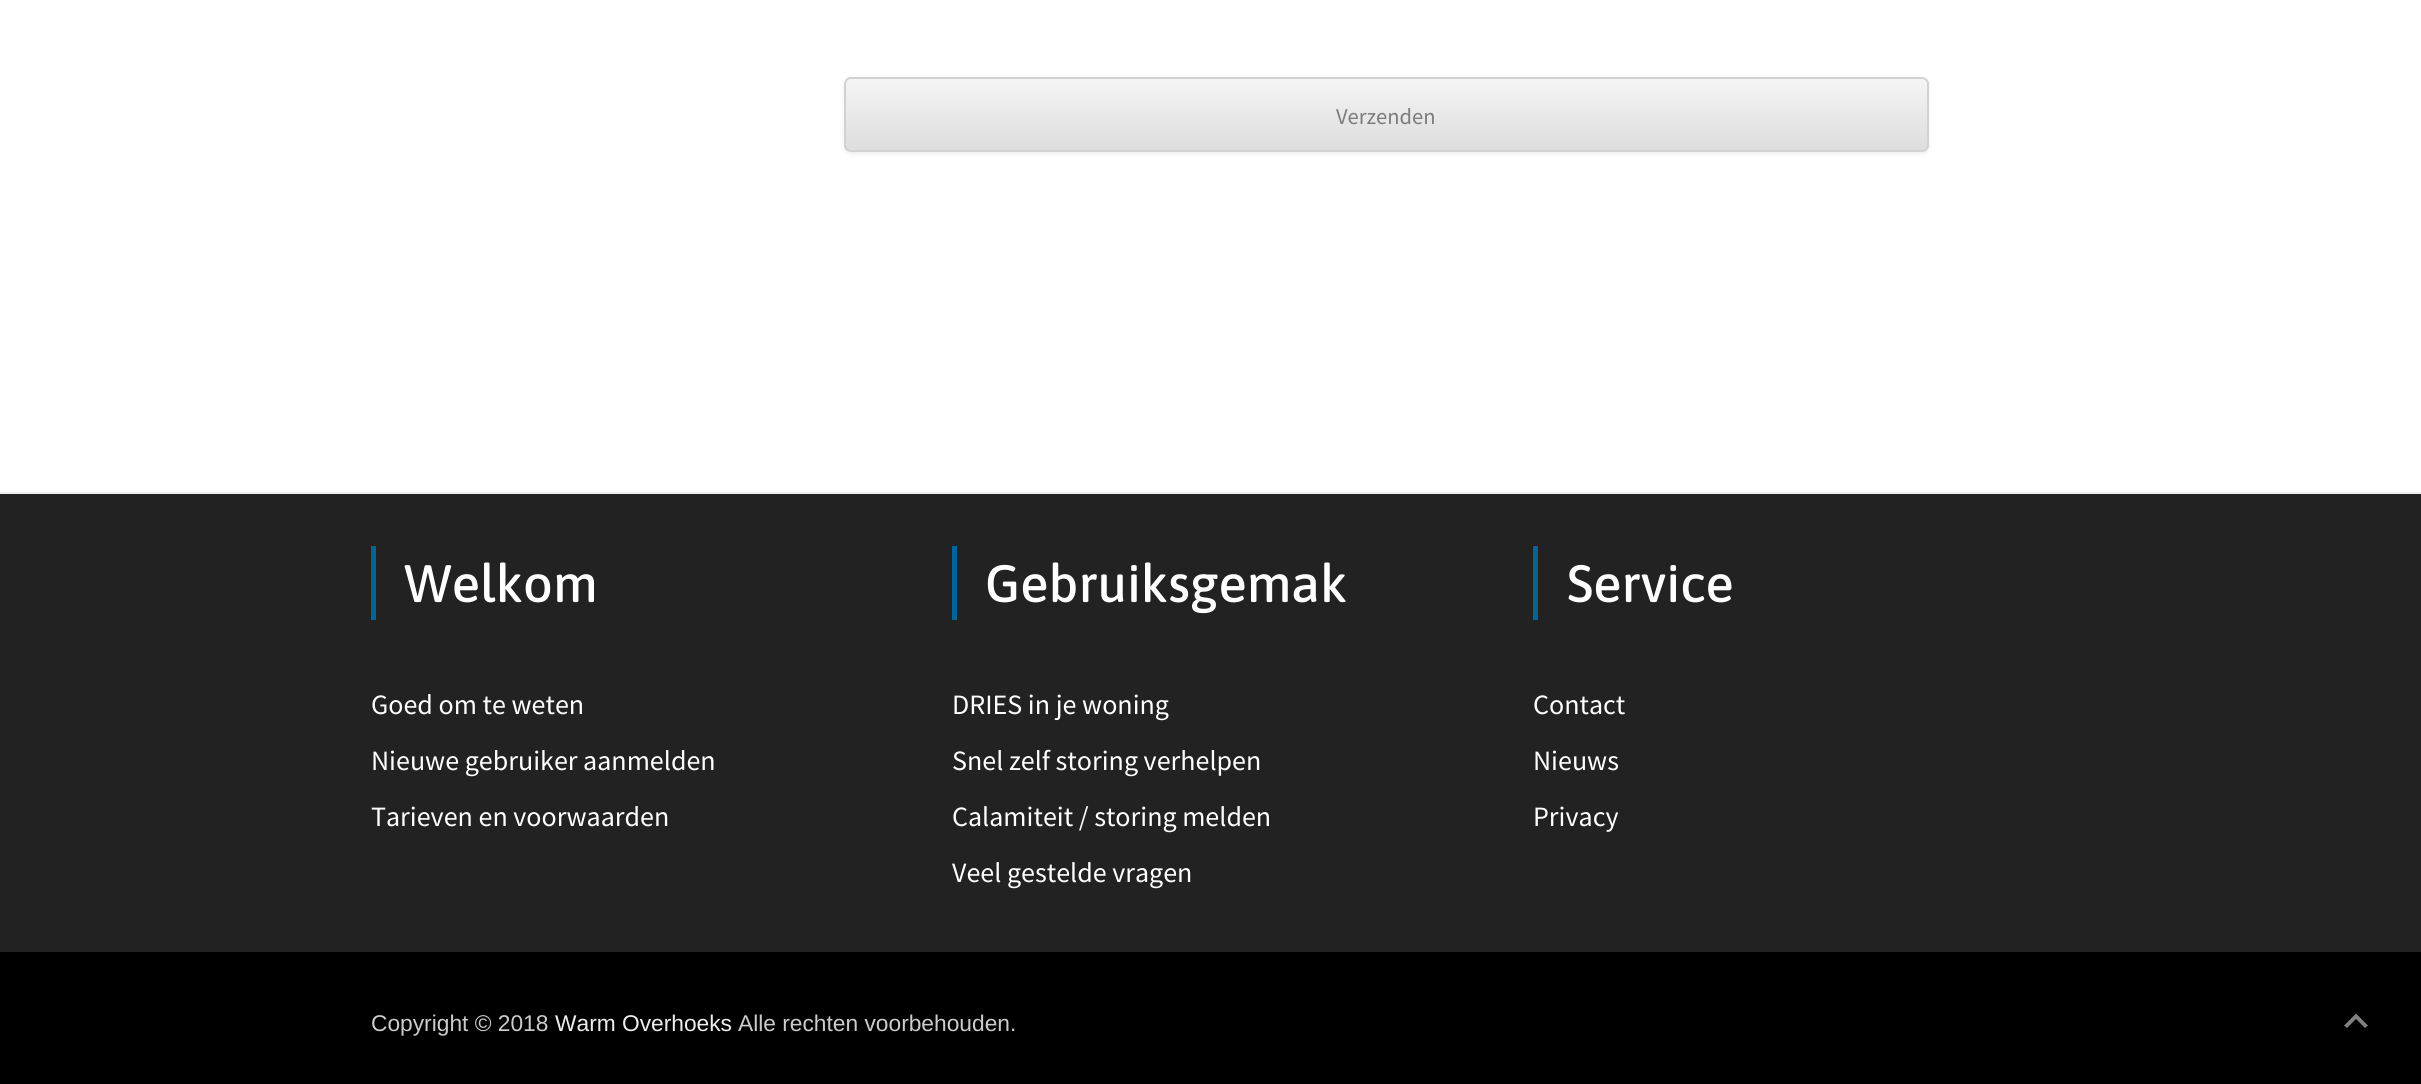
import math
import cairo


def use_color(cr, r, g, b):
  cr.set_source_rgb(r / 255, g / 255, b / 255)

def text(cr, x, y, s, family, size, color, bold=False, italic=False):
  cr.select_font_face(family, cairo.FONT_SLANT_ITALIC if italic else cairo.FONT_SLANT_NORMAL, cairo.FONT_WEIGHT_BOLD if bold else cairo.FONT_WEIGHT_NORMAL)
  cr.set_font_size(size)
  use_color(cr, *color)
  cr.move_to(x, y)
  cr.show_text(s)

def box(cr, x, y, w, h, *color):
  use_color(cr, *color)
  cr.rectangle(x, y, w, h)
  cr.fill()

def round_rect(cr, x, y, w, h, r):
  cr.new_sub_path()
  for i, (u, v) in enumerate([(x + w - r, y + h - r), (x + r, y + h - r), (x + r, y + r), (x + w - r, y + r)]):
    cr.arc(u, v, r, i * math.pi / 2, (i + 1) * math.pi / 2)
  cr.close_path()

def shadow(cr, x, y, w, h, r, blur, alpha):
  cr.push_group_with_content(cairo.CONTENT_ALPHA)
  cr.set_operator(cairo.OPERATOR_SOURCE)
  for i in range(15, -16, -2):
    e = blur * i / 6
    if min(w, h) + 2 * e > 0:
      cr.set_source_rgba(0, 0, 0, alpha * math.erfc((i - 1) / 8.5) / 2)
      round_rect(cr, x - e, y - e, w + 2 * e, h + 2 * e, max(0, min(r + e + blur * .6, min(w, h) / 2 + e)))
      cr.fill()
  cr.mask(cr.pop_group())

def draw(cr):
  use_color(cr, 255, 255, 255)
  cr.paint()
  use_color(cr, 64, 64, 64)
  shadow(cr, 844, 79, 1085, 75, 7, 2, 0.1)
  cr.save()
  round_rect(cr, 844, 77, 1085, 75, 7)
  cr.clip()
  gradient = cairo.LinearGradient(1386, 79, 1386, 151)
  gradient.add_color_stop_rgba(0, 0.957, 0.957, 0.957, 1)
  gradient.add_color_stop_rgba(1, 0.867, 0.867, 0.867, 1)
  cr.set_source(gradient)
  cr.rectangle(844, 79, 1085, 72)
  cr.fill()
  cr.restore()
  round_rect(cr, 845, 78, 1083, 73, 6)
  use_color(cr, 210, 210, 210)
  cr.stroke()
  box(cr, 0, 492, 2421, 2, 238, 238, 238)
  box(cr, 0, 494, 2421, 458, 34, 34, 34)
  box(cr, 371, 546, 5, 74, 0, 102, 153)
  box(cr, 952, 546, 5, 74, 0, 102, 153)
  box(cr, 1533, 546, 5, 74, 0, 102, 153)
  box(cr, 0, 952, 2421, 132, 0, 0, 0)
  use_color(cr, 128, 128, 128)
  cr.new_path()
  cr.move_to(2365, 1028)
  cr.line_to(2356, 1019)
  cr.line_to(2347, 1028)
  cr.line_to(2344, 1025.5)
  cr.line_to(2356, 1013.5)
  cr.line_to(2368, 1025.5)
  cr.close_path()
  cr.fill()
  text(cr, 1336, 124, "Verzenden", "Source Sans Pro", 22.5, (124, 124, 124))
  text(cr, 404, 602, "Welkom", "Asap Medium", 52.5, (255, 255, 255))
  text(cr, 371, 714, "Goed om te weten", "Source Sans Pro", 28, (255, 255, 255))
  text(cr, 371, 770, "Nieuwe gebruiker aanmelden", "Source Sans Pro", 28, (255, 255, 255))
  text(cr, 371, 826, "Tarieven en voorwaarden", "Source Sans Pro", 28, (255, 255, 255))
  text(cr, 985, 602, "Gebruiksgemak", "Asap Medium", 52.5, (255, 255, 255))
  text(cr, 952, 714, "DRIES in je woning", "Source Sans Pro", 28, (255, 255, 255))
  text(cr, 952, 770, "Snel zelf storing verhelpen", "Source Sans Pro", 28, (255, 255, 255))
  text(cr, 952, 826, "Calamiteit / storing melden", "Source Sans Pro", 28, (255, 255, 255))
  text(cr, 952, 882, "Veel gestelde vragen", "Source Sans Pro", 28, (255, 255, 255))
  text(cr, 1567, 602, "Service", "Asap Medium", 52.5, (255, 255, 255))
  text(cr, 1533, 714, "Contact", "Source Sans Pro", 28, (255, 255, 255))
  text(cr, 1533, 770, "Nieuws", "Source Sans Pro", 28, (255, 255, 255))
  text(cr, 1533, 826, "Privacy", "Source Sans Pro", 28, (255, 255, 255))
  text(cr, 371, 1031, "Copyright © 2018", "Liberation Sans", 22.75, (204, 204, 204))
  text(cr, 555, 1031, "Warm Overhoeks", "Liberation Sans", 22.75, (238, 238, 238))
  text(cr, 738, 1031, "Alle rechten voorbehouden.", "Liberation Sans", 22.75, (204, 204, 204))


surface = cairo.ImageSurface(cairo.FORMAT_RGB24, 2421, 1084)
cr = cairo.Context(surface)
options = cairo.FontOptions()
options.set_hint_metrics(cairo.HINT_METRICS_OFF)
options.set_hint_style(cairo.HINT_STYLE_NONE)
cr.set_font_options(options)
cr.set_miter_limit(4)
draw(cr)
surface.write_to_png("out.png")
